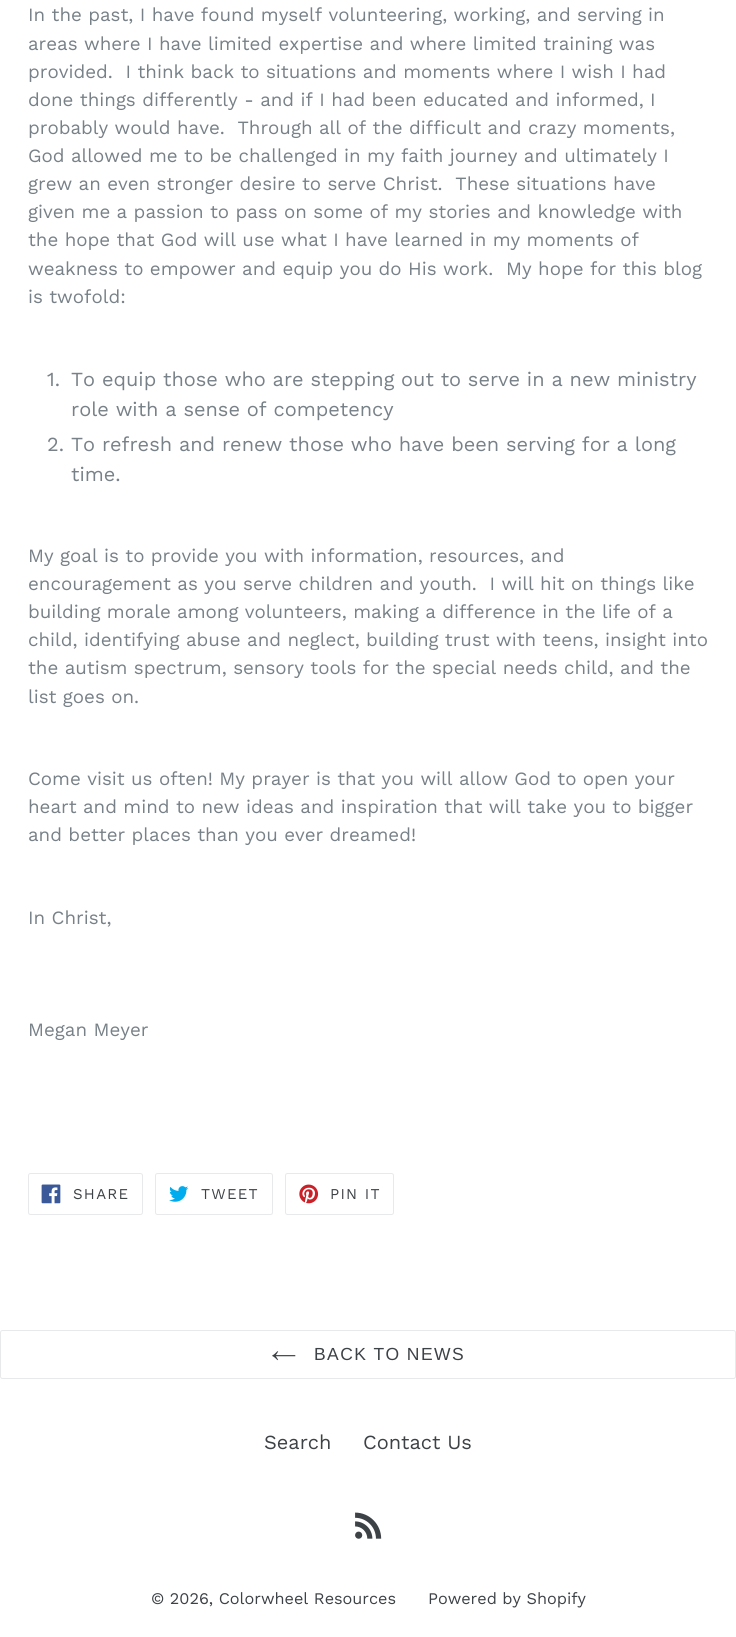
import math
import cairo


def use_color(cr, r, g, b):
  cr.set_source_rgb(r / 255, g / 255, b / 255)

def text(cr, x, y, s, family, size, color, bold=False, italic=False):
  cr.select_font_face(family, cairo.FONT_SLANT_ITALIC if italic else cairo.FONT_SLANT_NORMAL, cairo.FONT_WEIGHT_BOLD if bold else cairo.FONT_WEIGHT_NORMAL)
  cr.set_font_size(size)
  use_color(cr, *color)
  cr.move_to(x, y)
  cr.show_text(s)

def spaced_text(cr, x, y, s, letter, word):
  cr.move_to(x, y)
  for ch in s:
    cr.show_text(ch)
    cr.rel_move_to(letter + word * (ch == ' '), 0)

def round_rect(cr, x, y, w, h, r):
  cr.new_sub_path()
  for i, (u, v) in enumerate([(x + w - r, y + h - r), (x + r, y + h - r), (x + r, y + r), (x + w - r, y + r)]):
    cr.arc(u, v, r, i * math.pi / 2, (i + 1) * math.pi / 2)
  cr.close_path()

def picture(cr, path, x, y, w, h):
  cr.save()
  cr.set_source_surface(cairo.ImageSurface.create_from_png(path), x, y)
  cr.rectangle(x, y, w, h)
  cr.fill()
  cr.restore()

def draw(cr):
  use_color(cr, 255, 255, 255)
  cr.paint()
  round_rect(cr, 28.5, 1173.5, 114, 41, 2)
  use_color(cr, 232, 233, 235)
  cr.set_line_width(1)
  cr.stroke()
  picture(cr, "img_01.png", 41, 1184, 20, 20)
  round_rect(cr, 155.5, 1173.5, 117, 41, 2)
  cr.stroke()
  picture(cr, "img_02.png", 169, 1186, 20, 16)
  round_rect(cr, 285.5, 1173.5, 108, 41, 2)
  cr.stroke()
  picture(cr, "img_03.png", 299, 1184, 20, 20)
  round_rect(cr, 0.5, 1330.5, 735, 48, 2)
  cr.stroke()
  picture(cr, "img_04.png", 272, 1351, 24, 10)
  picture(cr, "img_05.png", 355, 1512, 27, 27)
  text(cr, 28, 21, "In the past, I have found myself volunteering, working, and serving in", "Work Sans", 18.75, (120, 129, 136))
  text(cr, 28, 50, "areas where I have limited expertise and where limited training was", "Work Sans", 18.75, (120, 129, 136))
  text(cr, 28, 78, "provided.  I think back to situations and moments where I wish I had", "Work Sans", 18.75, (120, 129, 136))
  text(cr, 28, 106, "done things differently - and if I had been educated and informed, I", "Work Sans", 18.75, (120, 129, 136))
  text(cr, 28, 134, "probably would have.  Through all of the difficult and crazy moments,", "Work Sans", 18.75, (120, 129, 136))
  text(cr, 28, 162, "God allowed me to be challenged in my faith journey and ultimately I", "Work Sans", 18.75, (120, 129, 136))
  text(cr, 28, 190, "grew an even stronger desire to serve Christ.  These situations have", "Work Sans", 18.75, (120, 129, 136))
  text(cr, 28, 218, "given me a passion to pass on some of my stories and knowledge with", "Work Sans", 18.75, (120, 129, 136))
  text(cr, 28, 246, "the hope that God will use what I have learned in my moments of", "Work Sans", 18.75, (120, 129, 136))
  text(cr, 28, 275, "weakness to empower and equip you do His work.  My hope for this blog", "Work Sans", 18.75, (120, 129, 136))
  text(cr, 28, 303, "is twofold:", "Work Sans", 18.75, (120, 129, 136))
  text(cr, 47, 386, "1.", "Work Sans", 20, (120, 129, 136))
  text(cr, 71, 386, "To equip those who are stepping out to serve in a new ministry", "Work Sans", 20, (120, 129, 136))
  text(cr, 71, 416, "role with a sense of competency", "Work Sans", 20, (120, 129, 136))
  text(cr, 47, 451, "2.", "Work Sans", 20, (120, 129, 136))
  text(cr, 71, 451, "To refresh and renew those who have been serving for a long", "Work Sans", 20, (120, 129, 136))
  text(cr, 71, 481, "time.", "Work Sans", 20, (120, 129, 136))
  text(cr, 28, 562, "My goal is to provide you with information, resources, and", "Work Sans", 18.75, (120, 129, 136))
  text(cr, 28, 590, "encouragement as you serve children and youth.  I will hit on things like", "Work Sans", 18.75, (120, 129, 136))
  text(cr, 28, 618, "building morale among volunteers, making a difference in the life of a", "Work Sans", 18.75, (120, 129, 136))
  text(cr, 28, 646, "child, identifying abuse and neglect, building trust with teens, insight into", "Work Sans", 18.75, (120, 129, 136))
  text(cr, 28, 674, "the autism spectrum, sensory tools for the special needs child, and the", "Work Sans", 18.75, (120, 129, 136))
  text(cr, 28, 703, "list goes on.", "Work Sans", 18.75, (120, 129, 136))
  text(cr, 28, 785, "Come visit us often! My prayer is that you will allow God to open your", "Work Sans", 18.75, (120, 129, 136))
  text(cr, 28, 813, "heart and mind to new ideas and inspiration that will take you to bigger", "Work Sans", 18.75, (120, 129, 136))
  text(cr, 28, 841, "and better places than you ever dreamed!", "Work Sans", 18.75, (120, 129, 136))
  text(cr, 28, 924, "In Christ,", "Work Sans", 18.75, (120, 129, 136))
  text(cr, 28, 1036, "Megan Meyer", "Work Sans", 18.75, (120, 129, 136))
  cr.set_font_size(15)
  use_color(cr, 61, 66, 70)
  spaced_text(cr, 73, 1199, "SHARE", 1.25, 0)
  spaced_text(cr, 201, 1199, "TWEET", 1.25, 0)
  spaced_text(cr, 330, 1199, "PIN IT", 1.25, 0)
  cr.select_font_face("Liberation Sans")
  cr.set_font_size(17.5)
  spaced_text(cr, 314, 1360, "BACK TO NEWS", 1.4, 0)
  text(cr, 264, 1449, "Search", "Work Sans", 20, (61, 66, 70))
  text(cr, 363, 1449, "Contact Us", "Work Sans", 20, (61, 66, 70))
  text(cr, 151, 1604, "© 2026, Colorwheel Resources", "Work Sans", 16.25, (61, 66, 70))
  text(cr, 428, 1604, "Powered by Shopify", "Work Sans", 16.25, (61, 66, 70))


surface = cairo.ImageSurface(cairo.FORMAT_RGB24, 736, 1637)
cr = cairo.Context(surface)
options = cairo.FontOptions()
options.set_hint_metrics(cairo.HINT_METRICS_OFF)
options.set_hint_style(cairo.HINT_STYLE_NONE)
cr.set_font_options(options)
cr.set_miter_limit(4)
draw(cr)
surface.write_to_png("out.png")
